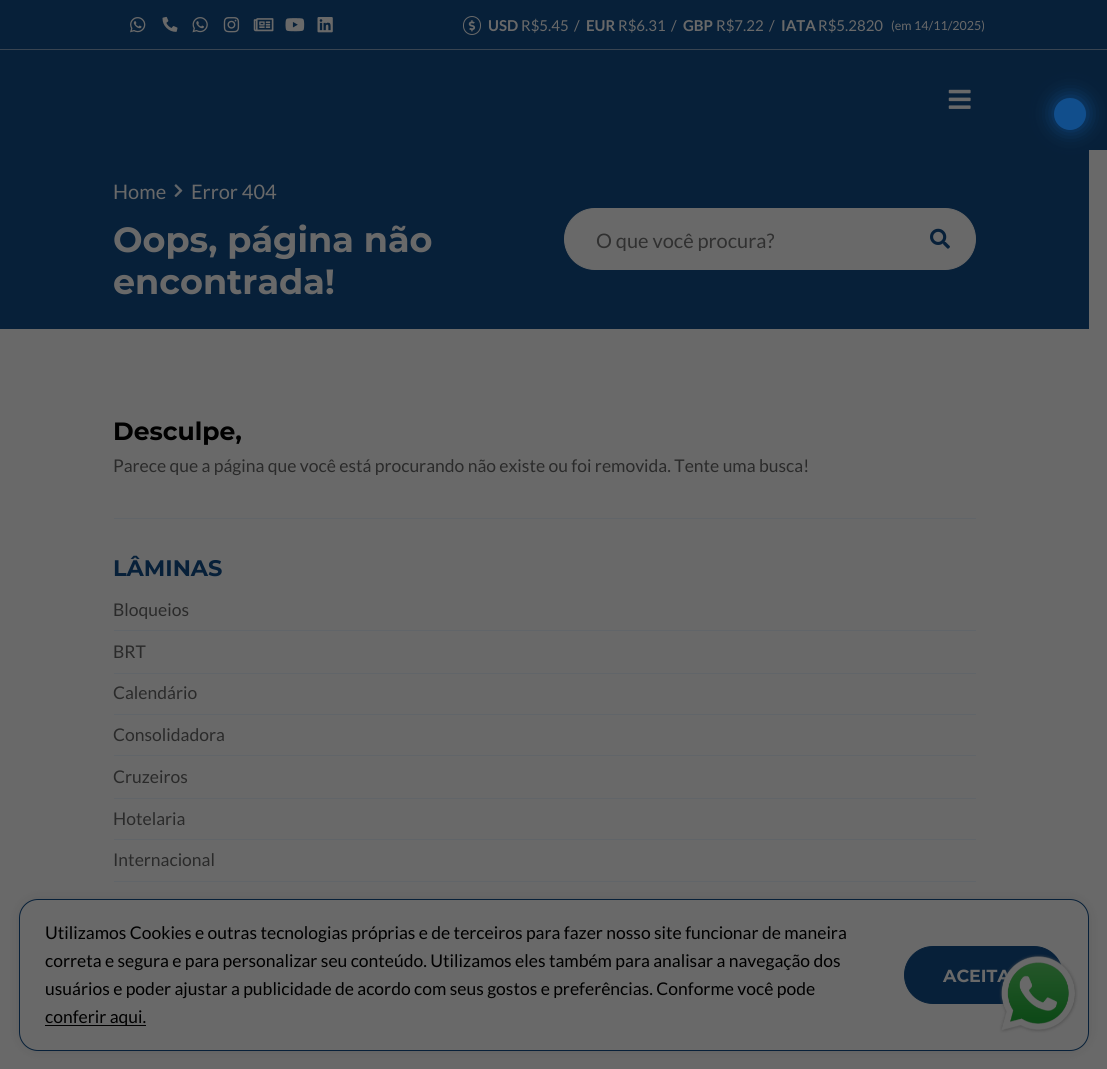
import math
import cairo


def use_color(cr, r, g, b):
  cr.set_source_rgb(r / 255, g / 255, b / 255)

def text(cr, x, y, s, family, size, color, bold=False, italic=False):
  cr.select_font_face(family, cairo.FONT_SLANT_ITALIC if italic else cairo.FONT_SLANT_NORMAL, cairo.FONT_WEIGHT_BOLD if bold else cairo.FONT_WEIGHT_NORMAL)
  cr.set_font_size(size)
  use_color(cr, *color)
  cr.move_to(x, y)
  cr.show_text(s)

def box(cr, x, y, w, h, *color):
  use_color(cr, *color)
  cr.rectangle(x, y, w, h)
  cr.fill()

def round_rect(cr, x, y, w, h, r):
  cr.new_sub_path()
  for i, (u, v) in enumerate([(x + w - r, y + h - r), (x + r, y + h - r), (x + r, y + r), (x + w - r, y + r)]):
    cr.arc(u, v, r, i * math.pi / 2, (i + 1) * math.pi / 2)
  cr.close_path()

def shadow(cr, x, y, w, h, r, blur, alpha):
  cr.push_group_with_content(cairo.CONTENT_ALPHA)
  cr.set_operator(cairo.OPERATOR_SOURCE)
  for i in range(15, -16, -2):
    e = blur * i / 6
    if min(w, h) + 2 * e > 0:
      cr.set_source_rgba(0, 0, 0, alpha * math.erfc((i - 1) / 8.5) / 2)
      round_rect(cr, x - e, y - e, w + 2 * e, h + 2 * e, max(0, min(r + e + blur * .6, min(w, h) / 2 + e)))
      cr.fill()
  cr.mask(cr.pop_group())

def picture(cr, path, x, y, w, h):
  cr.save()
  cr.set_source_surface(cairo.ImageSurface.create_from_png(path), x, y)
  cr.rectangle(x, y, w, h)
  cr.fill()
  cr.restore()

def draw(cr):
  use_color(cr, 105, 105, 105)
  cr.paint()
  box(cr, 0, 0, 1107, 150, 7, 32, 57)
  box(cr, 0, 49, 1107, 1, 56, 68, 81)
  picture(cr, "img_01.png", 130, 17, 16, 16)
  picture(cr, "img_02.png", 162, 16, 16, 16)
  picture(cr, "img_03.png", 192, 17, 16, 16)
  picture(cr, "img_04.png", 223, 17, 17, 16)
  picture(cr, "img_05.png", 253, 18, 21, 14)
  picture(cr, "img_06.png", 285, 18, 20, 14)
  picture(cr, "img_07.png", 317, 17, 16, 16)
  round_rect(cr, 463.5, 16.5, 17, 18, 8.5)
  use_color(cr, 105, 105, 105)
  cr.set_line_width(1)
  cr.stroke()
  picture(cr, "img_08.png", 468, 20, 8, 12)
  picture(cr, "img_09.png", 948, 89, 23, 20)
  box(cr, 0, 150, 1089, 179, 7, 32, 57)
  picture(cr, "img_10.png", 174, 184, 9, 13)
  use_color(cr, 105, 105, 105)
  round_rect(cr, 564.5, 208.5, 411, 61, 30.5)
  cr.fill_preserve()
  cr.stroke()
  picture(cr, "img_11.png", 930, 228, 20, 21)
  box(cr, 114, 518, 862, 1, 97, 101, 105)
  box(cr, 114, 630, 862, 1, 97, 101, 105)
  box(cr, 114, 673, 862, 1, 97, 101, 105)
  box(cr, 114, 714, 862, 1, 97, 101, 105)
  box(cr, 114, 755, 862, 1, 97, 101, 105)
  box(cr, 114, 798, 862, 1, 97, 101, 105)
  box(cr, 114, 839, 862, 1, 97, 101, 105)
  box(cr, 114, 881, 862, 1, 97, 101, 105)
  use_color(cr, 17, 78, 140)
  shadow(cr, 1053, 96, 35, 35, 17.5, 9.5, 0.75)
  use_color(cr, 17, 78, 140)
  cr.arc(1070, 114, 14.5, 0, 2 * math.pi)
  cr.fill_preserve()
  cr.set_line_width(3)
  cr.stroke()
  use_color(cr, 0, 0, 0)
  shadow(cr, 19, 899, 1070, 152, 19, 6, 0.1)
  use_color(cr, 105, 105, 105)
  round_rect(cr, 19.5, 899.5, 1069, 151, 18.5)
  cr.fill_preserve()
  use_color(cr, 7, 32, 57)
  cr.set_line_width(1)
  cr.stroke()
  box(cr, 45, 1025, 101, 1, 0, 0, 0)
  use_color(cr, 7, 32, 57)
  round_rect(cr, 904.5, 946.5, 158, 57, 28.5)
  cr.fill_preserve()
  cr.stroke()
  text(cr, 488, 31, "USD", "Lato", 15, (105, 105, 105), bold=True)
  text(cr, 521, 31, "R$5.45", "Lato", 15, (105, 105, 105))
  text(cr, 574, 31, "/", "Lato", 15, (105, 105, 105))
  text(cr, 586, 31, "EUR", "Lato", 15, (105, 105, 105), bold=True)
  text(cr, 618, 31, "R$6.31", "Lato", 15, (105, 105, 105))
  text(cr, 671, 31, "/", "Lato", 15, (105, 105, 105))
  text(cr, 683, 31, "GBP", "Lato", 15, (105, 105, 105), bold=True)
  text(cr, 716, 31, "R$7.22", "Lato", 15, (105, 105, 105))
  text(cr, 769, 31, "/", "Lato", 15, (105, 105, 105))
  text(cr, 781, 31, "IATA", "Lato", 15, (105, 105, 105), bold=True)
  text(cr, 818, 31, "R$5.2820", "Lato", 15, (105, 105, 105))
  text(cr, 891, 30, "(em 14/11/2025)", "Lato", 12.5, (105, 105, 105))
  text(cr, 113, 199, "Home", "Lato", 20, (105, 105, 105))
  text(cr, 191, 199, "Error 404", "Lato", 20, (105, 105, 105))
  text(cr, 113, 252, "Oops, página não", "Montserrat", 35, (105, 105, 105), bold=True)
  text(cr, 113, 294, "encontrada!", "Montserrat", 35, (105, 105, 105), bold=True)
  cr.save()
  cr.rectangle(596, 228, 310, 23)
  cr.clip()
  text(cr, 596, 248, "O que você procura?", "Lato", 20, (48, 48, 48))
  cr.restore()
  text(cr, 113, 440, "Desculpe,", "Montserrat", 25, (0, 0, 0), bold=True)
  text(cr, 113, 472, "Parece que a página que você está procurando não existe ou foi removida. Tente uma busca!", "Lato", 17.5, (42, 42, 42))
  text(cr, 113, 576, "LÂMINAS", "Montserrat", 22.5, (7, 32, 57), bold=True)
  text(cr, 113, 616, "Bloqueios", "Lato", 17.5, (42, 42, 42))
  text(cr, 113, 658, "BRT", "Lato", 17.5, (42, 42, 42))
  text(cr, 113, 699, "Calendário", "Lato", 17.5, (42, 42, 42))
  text(cr, 113, 741, "Consolidadora", "Lato", 17.5, (42, 42, 42))
  text(cr, 113, 783, "Cruzeiros", "Lato", 17.5, (42, 42, 42))
  text(cr, 113, 825, "Hotelaria", "Lato", 17.5, (42, 42, 42))
  text(cr, 113, 866, "Internacional", "Lato", 17.5, (42, 42, 42))
  text(cr, 45, 939, "Utilizamos Cookies e outras tecnologias próprias e de terceiros para fazer nosso site funcionar de maneira", "Lato", 17.5, (0, 0, 0))
  text(cr, 45, 967, "correta e segura e para personalizar seu conteúdo. Utilizamos eles também para analisar a navegação dos", "Lato", 17.5, (0, 0, 0))
  text(cr, 45, 995, "usuários e poder ajustar a publicidade de acordo com seus gostos e preferências. Conforme você pode", "Lato", 17.5, (0, 0, 0))
  text(cr, 45, 1023, "conferir aqui.", "Lato", 17.5, (0, 0, 0))
  text(cr, 943, 982, "ACEITA", "Montserrat", 17.5, (105, 105, 105), bold=True)
  picture(cr, "img_12.png", 999, 954, 79, 79)


surface = cairo.ImageSurface(cairo.FORMAT_RGB24, 1107, 1069)
cr = cairo.Context(surface)
options = cairo.FontOptions()
options.set_hint_metrics(cairo.HINT_METRICS_OFF)
options.set_hint_style(cairo.HINT_STYLE_NONE)
cr.set_font_options(options)
cr.set_miter_limit(4)
draw(cr)
surface.write_to_png("out.png")
